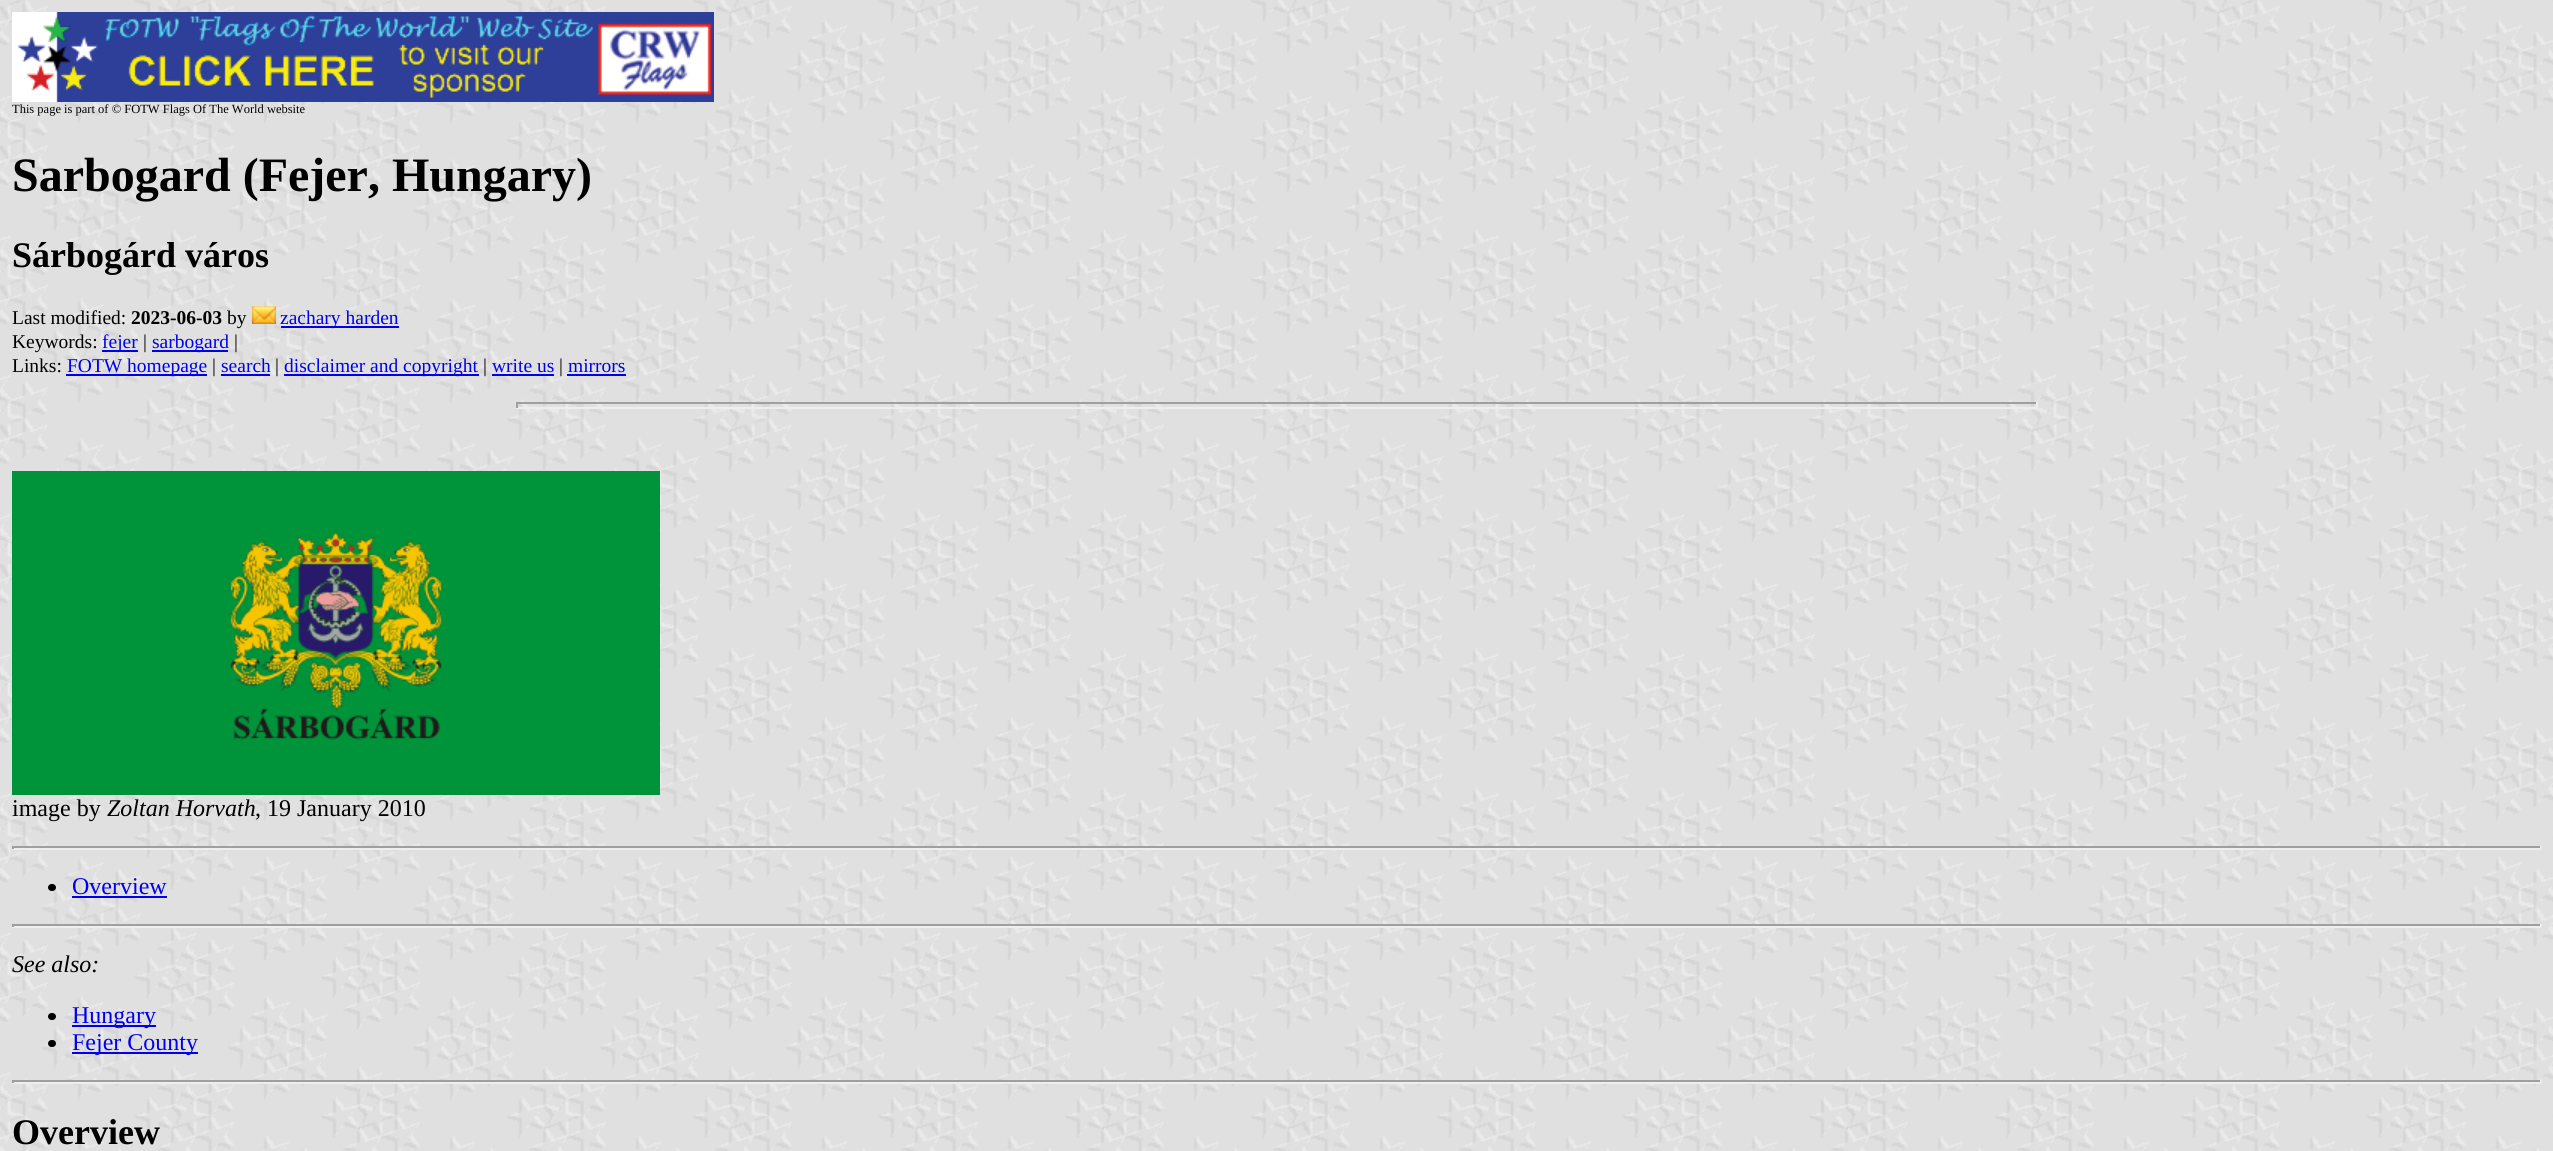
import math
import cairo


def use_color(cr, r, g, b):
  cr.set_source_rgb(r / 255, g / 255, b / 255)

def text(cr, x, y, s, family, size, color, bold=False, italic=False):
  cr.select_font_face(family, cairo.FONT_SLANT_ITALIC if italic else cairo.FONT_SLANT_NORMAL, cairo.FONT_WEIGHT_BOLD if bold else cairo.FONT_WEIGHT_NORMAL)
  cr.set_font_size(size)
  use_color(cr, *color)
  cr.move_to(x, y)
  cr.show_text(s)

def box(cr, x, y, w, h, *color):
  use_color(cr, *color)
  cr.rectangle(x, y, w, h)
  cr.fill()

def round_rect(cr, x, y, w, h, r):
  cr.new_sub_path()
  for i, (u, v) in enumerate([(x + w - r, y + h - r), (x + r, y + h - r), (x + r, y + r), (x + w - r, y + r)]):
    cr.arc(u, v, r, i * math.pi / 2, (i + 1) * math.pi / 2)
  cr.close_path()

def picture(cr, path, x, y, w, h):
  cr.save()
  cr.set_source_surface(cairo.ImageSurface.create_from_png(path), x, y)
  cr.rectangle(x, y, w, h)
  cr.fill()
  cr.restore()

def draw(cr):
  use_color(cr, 255, 255, 255)
  cr.paint()
  picture(cr, "img_01.png", 0, 0, 2553, 1151)
  picture(cr, "img_02.png", 12, 12, 702, 90)
  picture(cr, "img_03.png", 252, 306, 24, 18)
  box(cr, 281, 326, 118, 2, 0, 0, 238)
  box(cr, 102, 350, 36, 2, 0, 0, 238)
  box(cr, 152, 350, 76, 2, 0, 0, 238)
  box(cr, 66, 374, 141, 2, 0, 0, 238)
  box(cr, 221, 374, 49, 2, 0, 0, 238)
  box(cr, 284, 374, 195, 2, 0, 0, 238)
  box(cr, 492, 374, 62, 2, 0, 0, 238)
  box(cr, 567, 374, 59, 2, 0, 0, 238)
  box(cr, 516, 402, 1521, 2, 159, 159, 159)
  box(cr, 2036, 402, 2, 6, 238, 238, 238)
  box(cr, 516, 407, 1521, 2, 238, 238, 238)
  box(cr, 516, 402, 2, 6, 159, 159, 159)
  picture(cr, "img_04.png", 12, 471, 648, 324)
  box(cr, 12, 846, 2529, 2, 159, 159, 159)
  box(cr, 2540, 846, 2, 3, 238, 238, 238)
  box(cr, 12, 848, 2529, 2, 238, 238, 238)
  box(cr, 12, 846, 2, 3, 159, 159, 159)
  use_color(cr, 0, 0, 0)
  round_rect(cr, 48, 884, 8, 7, 3.5)
  cr.fill()
  box(cr, 72, 896, 95, 2, 0, 0, 238)
  box(cr, 12, 924, 2529, 2, 159, 159, 159)
  box(cr, 2540, 924, 2, 3, 238, 238, 238)
  box(cr, 12, 926, 2529, 2, 238, 238, 238)
  box(cr, 12, 924, 2, 3, 159, 159, 159)
  use_color(cr, 0, 0, 0)
  round_rect(cr, 48, 1013, 8, 7, 3.5)
  cr.fill()
  box(cr, 72, 1025, 84, 2, 0, 0, 238)
  use_color(cr, 0, 0, 0)
  round_rect(cr, 48, 1040, 8, 7, 3.5)
  cr.fill()
  box(cr, 72, 1052, 126, 2, 0, 0, 238)
  box(cr, 12, 1080, 2529, 2, 159, 159, 159)
  box(cr, 2540, 1080, 2, 3, 238, 238, 238)
  box(cr, 12, 1082, 2529, 2, 238, 238, 238)
  box(cr, 12, 1080, 2, 3, 159, 159, 159)
  text(cr, 12, 113, "This page is part of © FOTW Flags Of The World website", "Liberation Serif", 12.5, (0, 0, 0))
  text(cr, 12, 191, "Sarbogard (Fejer, Hungary)", "Liberation Serif", 48, (0, 0, 0), bold=True)
  text(cr, 12, 267, "Sárbogárd város", "Liberation Serif", 36, (0, 0, 0), bold=True)
  text(cr, 12, 324, "Last modified:", "Liberation Serif", 19.5, (0, 0, 0))
  text(cr, 131, 324, "2023-06-03", "Liberation Serif", 19.5, (0, 0, 0), bold=True)
  text(cr, 227, 324, "by", "Liberation Serif", 19.5, (0, 0, 0))
  text(cr, 280, 324, "zachary harden", "Liberation Serif", 19.5, (0, 0, 238))
  text(cr, 12, 348, "Keywords:", "Liberation Serif", 19.5, (0, 0, 0))
  text(cr, 102, 348, "fejer", "Liberation Serif", 19.5, (0, 0, 238))
  text(cr, 143, 348, "|", "Liberation Serif", 19.5, (0, 0, 0))
  text(cr, 152, 348, "sarbogard", "Liberation Serif", 19.5, (0, 0, 238))
  text(cr, 234, 348, "|", "Liberation Serif", 19.5, (0, 0, 0))
  text(cr, 12, 372, "Links:", "Liberation Serif", 19.5, (0, 0, 0))
  text(cr, 67, 372, "FOTW homepage", "Liberation Serif", 19.5, (0, 0, 238))
  text(cr, 212, 372, "|", "Liberation Serif", 19.5, (0, 0, 0))
  text(cr, 221, 372, "search", "Liberation Serif", 19.5, (0, 0, 238))
  text(cr, 275, 372, "|", "Liberation Serif", 19.5, (0, 0, 0))
  text(cr, 284, 372, "disclaimer and copyright", "Liberation Serif", 19.5, (0, 0, 238))
  text(cr, 483, 372, "|", "Liberation Serif", 19.5, (0, 0, 0))
  text(cr, 492, 372, "write us", "Liberation Serif", 19.5, (0, 0, 238))
  text(cr, 559, 372, "|", "Liberation Serif", 19.5, (0, 0, 0))
  text(cr, 568, 372, "mirrors", "Liberation Serif", 19.5, (0, 0, 238))
  text(cr, 12, 816, "image by", "Liberation Serif", 24, (0, 0, 0))
  text(cr, 107, 816, "Zoltan Horvath", "Liberation Serif", 24, (0, 0, 0), italic=True)
  text(cr, 255, 816, ", 19 January 2010", "Liberation Serif", 24, (0, 0, 0))
  text(cr, 72, 894, "Overview", "Liberation Serif", 24, (0, 0, 238))
  text(cr, 12, 972, "See also:", "Liberation Serif", 24, (0, 0, 0), italic=True)
  text(cr, 72, 1023, "Hungary", "Liberation Serif", 24, (0, 0, 238))
  text(cr, 72, 1050, "Fejer County", "Liberation Serif", 24, (0, 0, 238))
  text(cr, 12, 1144, "Overview", "Liberation Serif", 36, (0, 0, 0), bold=True)


surface = cairo.ImageSurface(cairo.FORMAT_RGB24, 2553, 1151)
cr = cairo.Context(surface)
options = cairo.FontOptions()
options.set_hint_metrics(cairo.HINT_METRICS_OFF)
options.set_hint_style(cairo.HINT_STYLE_NONE)
cr.set_font_options(options)
cr.set_miter_limit(4)
draw(cr)
surface.write_to_png("out.png")
